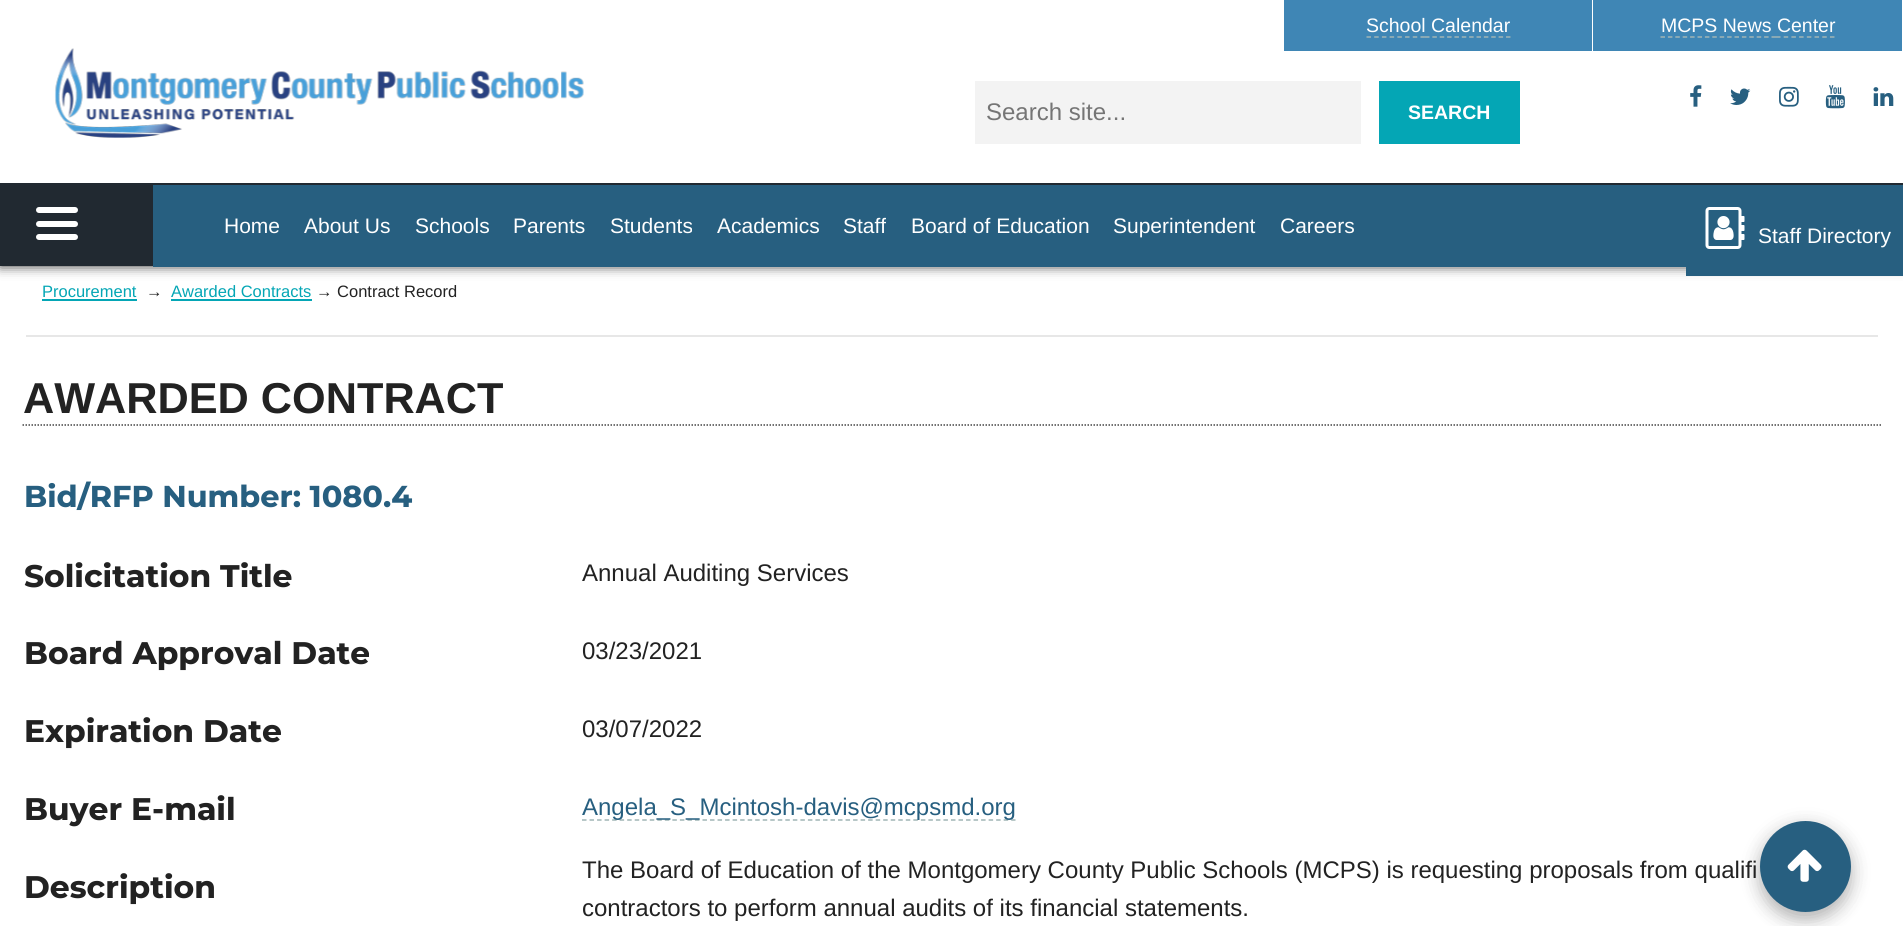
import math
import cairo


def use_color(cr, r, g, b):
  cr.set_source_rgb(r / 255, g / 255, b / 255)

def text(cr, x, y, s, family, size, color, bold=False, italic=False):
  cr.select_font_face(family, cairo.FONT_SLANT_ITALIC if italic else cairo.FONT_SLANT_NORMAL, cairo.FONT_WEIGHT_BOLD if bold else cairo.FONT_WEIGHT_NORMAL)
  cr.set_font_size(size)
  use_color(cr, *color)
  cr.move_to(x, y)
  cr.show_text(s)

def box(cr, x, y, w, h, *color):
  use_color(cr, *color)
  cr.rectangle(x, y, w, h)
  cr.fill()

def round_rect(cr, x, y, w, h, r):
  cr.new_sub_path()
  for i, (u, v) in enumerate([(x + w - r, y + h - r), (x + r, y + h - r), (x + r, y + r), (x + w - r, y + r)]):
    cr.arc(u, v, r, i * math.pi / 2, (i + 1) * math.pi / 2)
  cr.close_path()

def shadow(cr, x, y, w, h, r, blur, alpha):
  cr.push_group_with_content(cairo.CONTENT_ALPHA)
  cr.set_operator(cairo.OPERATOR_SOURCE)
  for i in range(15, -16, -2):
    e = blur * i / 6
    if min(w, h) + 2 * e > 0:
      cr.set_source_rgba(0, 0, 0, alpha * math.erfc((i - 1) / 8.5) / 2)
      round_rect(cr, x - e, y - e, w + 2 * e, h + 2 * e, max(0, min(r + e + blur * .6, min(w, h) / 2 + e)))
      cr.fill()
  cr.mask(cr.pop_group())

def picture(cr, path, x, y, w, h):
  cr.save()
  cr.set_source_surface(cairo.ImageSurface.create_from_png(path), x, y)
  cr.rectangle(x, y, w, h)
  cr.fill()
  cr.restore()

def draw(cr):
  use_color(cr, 255, 255, 255)
  cr.paint()
  use_color(cr, 51, 51, 51)
  shadow(cr, 0, 0, 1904, 266, 0, 6, 1)
  box(cr, 0, 0, 1903, 183, 255, 255, 255)
  picture(cr, "img_01.png", 54, 48, 530, 90)
  box(cr, 1284, 0, 308, 51, 63, 134, 181)
  cr.new_path()
  cr.move_to(1366.5, 37)
  cr.line_to(1425, 37)
  use_color(cr, 160, 180, 181)
  cr.set_line_width(1.5)
  cr.set_dash([4.5, 3.21])
  cr.stroke()
  cr.new_path()
  cr.move_to(1425, 37)
  cr.line_to(1510.5, 37)
  cr.set_dash([4.5, 2.86])
  cr.stroke()
  box(cr, 1593, 0, 309, 51, 63, 134, 181)
  cr.new_path()
  cr.move_to(1660.5, 37)
  cr.line_to(1776, 37)
  use_color(cr, 160, 180, 181)
  cr.set_dash([4.5, 2.9])
  cr.stroke()
  cr.new_path()
  cr.move_to(1776, 37)
  cr.line_to(1834.5, 37)
  cr.set_dash([4.5, 3.21])
  cr.stroke()
  picture(cr, "img_02.png", 1690, 85, 12, 22)
  picture(cr, "img_03.png", 1730, 88, 21, 17)
  picture(cr, "img_04.png", 1779, 86, 20, 21)
  picture(cr, "img_05.png", 1825, 85, 20, 24)
  picture(cr, "img_06.png", 1873, 87, 21, 19)
  box(cr, 975, 81, 386, 63, 243, 243, 243)
  box(cr, 1379, 81, 141, 63, 4, 166, 181)
  box(cr, 0, 183, 1903, 83, 33, 41, 49)
  use_color(cr, 255, 255, 255)
  round_rect(cr, 36, 221, 42, 6, 3)
  cr.fill()
  round_rect(cr, 36, 207, 42, 6, 3)
  cr.fill()
  round_rect(cr, 36, 234, 42, 6, 3)
  cr.fill()
  box(cr, 153, 185, 1533, 82, 39, 95, 128)
  box(cr, 1686, 185, 217, 91, 39, 95, 128)
  picture(cr, "img_07.png", 1705, 207, 40, 42)
  box(cr, 26, 335, 1852, 2, 231, 231, 231)
  box(cr, 42, 299, 95, 2, 4, 166, 181)
  box(cr, 171, 299, 141, 2, 4, 166, 181)
  cr.new_path()
  cr.move_to(22.5, 425)
  cr.line_to(1881, 425)
  use_color(cr, 68, 68, 68)
  cr.set_dash([1.5, 1.5])
  cr.stroke()
  cr.new_path()
  cr.move_to(582, 820)
  cr.line_to(1015.5, 820)
  use_color(cr, 160, 180, 181)
  cr.set_dash([4.5, 3.03])
  cr.stroke()
  use_color(cr, 0, 0, 0)
  shadow(cr, 1760, 827, 91, 91, 45.5, 11, 0.15)
  shadow(cr, 1760, 828, 91, 92, 45.5, 8, 0.18)
  use_color(cr, 39, 95, 128)
  cr.arc(1805.5, 866.5, 45.5, 0, 2 * math.pi)
  cr.fill()
  picture(cr, "img_08.png", 1787, 849, 35, 33)
  text(cr, 1366, 32, "School Calendar", "Liberation Sans", 19.5, (255, 255, 255))
  text(cr, 1661, 32, "MCPS News Center", "Liberation Sans", 19.5, (255, 255, 255))
  text(cr, 986, 120, "Search site...", "Liberation Sans", 24, (117, 117, 117))
  text(cr, 1408, 119, "SEARCH", "Liberation Sans", 19.5, (255, 255, 255), bold=True)
  text(cr, 224, 233, "Home", "Liberation Sans", 21, (255, 255, 255))
  text(cr, 304, 233, "About Us", "Liberation Sans", 21, (255, 255, 255))
  text(cr, 415, 233, "Schools", "Liberation Sans", 21, (255, 255, 255))
  text(cr, 513, 233, "Parents", "Liberation Sans", 21, (255, 255, 255))
  text(cr, 610, 233, "Students", "Liberation Sans", 21, (255, 255, 255))
  text(cr, 717, 233, "Academics", "Liberation Sans", 21, (255, 255, 255))
  text(cr, 843, 233, "Staff", "Liberation Sans", 21, (255, 255, 255))
  text(cr, 911, 233, "Board of Education", "Liberation Sans", 21, (255, 255, 255))
  text(cr, 1113, 233, "Superintendent", "Liberation Sans", 21, (255, 255, 255))
  text(cr, 1280, 233, "Careers", "Liberation Sans", 21, (255, 255, 255))
  text(cr, 1758, 243, "Staff Directory", "Liberation Sans", 21, (255, 255, 255))
  text(cr, 42, 297, "Procurement", "Liberation Sans", 16.5, (4, 166, 181))
  text(cr, 146, 297, "→", "Liberation Sans", 16.5, (34, 34, 34))
  text(cr, 171, 297, "Awarded Contracts", "Liberation Sans", 16.5, (4, 166, 181))
  text(cr, 316, 297, "→ Contract Record", "Liberation Sans", 16.5, (34, 34, 34))
  text(cr, 23, 413, "AWARDED CONTRACT", "Liberation Sans", 43.25, (34, 34, 34), bold=True)
  text(cr, 24, 507, "Bid/RFP Number: 1080.4", "Montserrat", 30.25, (39, 95, 128), bold=True)
  text(cr, 24, 587, "Solicitation Title", "Montserrat", 31.25, (34, 34, 34), bold=True)
  text(cr, 582, 581, "Annual Auditing Services", "Liberation Sans", 24, (34, 34, 34))
  text(cr, 24, 664, "Board Approval Date", "Montserrat", 31.25, (34, 34, 34), bold=True)
  text(cr, 582, 659, "03/23/2021", "Liberation Sans", 24, (34, 34, 34))
  text(cr, 24, 742, "Expiration Date", "Montserrat", 31.25, (34, 34, 34), bold=True)
  text(cr, 582, 737, "03/07/2022", "Liberation Sans", 24, (34, 34, 34))
  text(cr, 24, 820, "Buyer E-mail", "Montserrat", 31.25, (34, 34, 34), bold=True)
  text(cr, 582, 815, "Angela_S_Mcintosh-davis@mcpsmd.org", "Liberation Sans", 24, (39, 95, 128))
  text(cr, 24, 898, "Description", "Montserrat", 31.25, (34, 34, 34), bold=True)
  text(cr, 582, 878, "The Board of Education of the Montgomery County Public Schools (MCPS) is requesting proposals from qualifi", "Liberation Sans", 24, (34, 34, 34))
  text(cr, 582, 916, "contractors to perform annual audits of its financial statements.", "Liberation Sans", 24, (34, 34, 34))


surface = cairo.ImageSurface(cairo.FORMAT_RGB24, 1903, 926)
cr = cairo.Context(surface)
options = cairo.FontOptions()
options.set_hint_metrics(cairo.HINT_METRICS_OFF)
options.set_hint_style(cairo.HINT_STYLE_NONE)
cr.set_font_options(options)
cr.set_miter_limit(4)
draw(cr)
surface.write_to_png("out.png")
